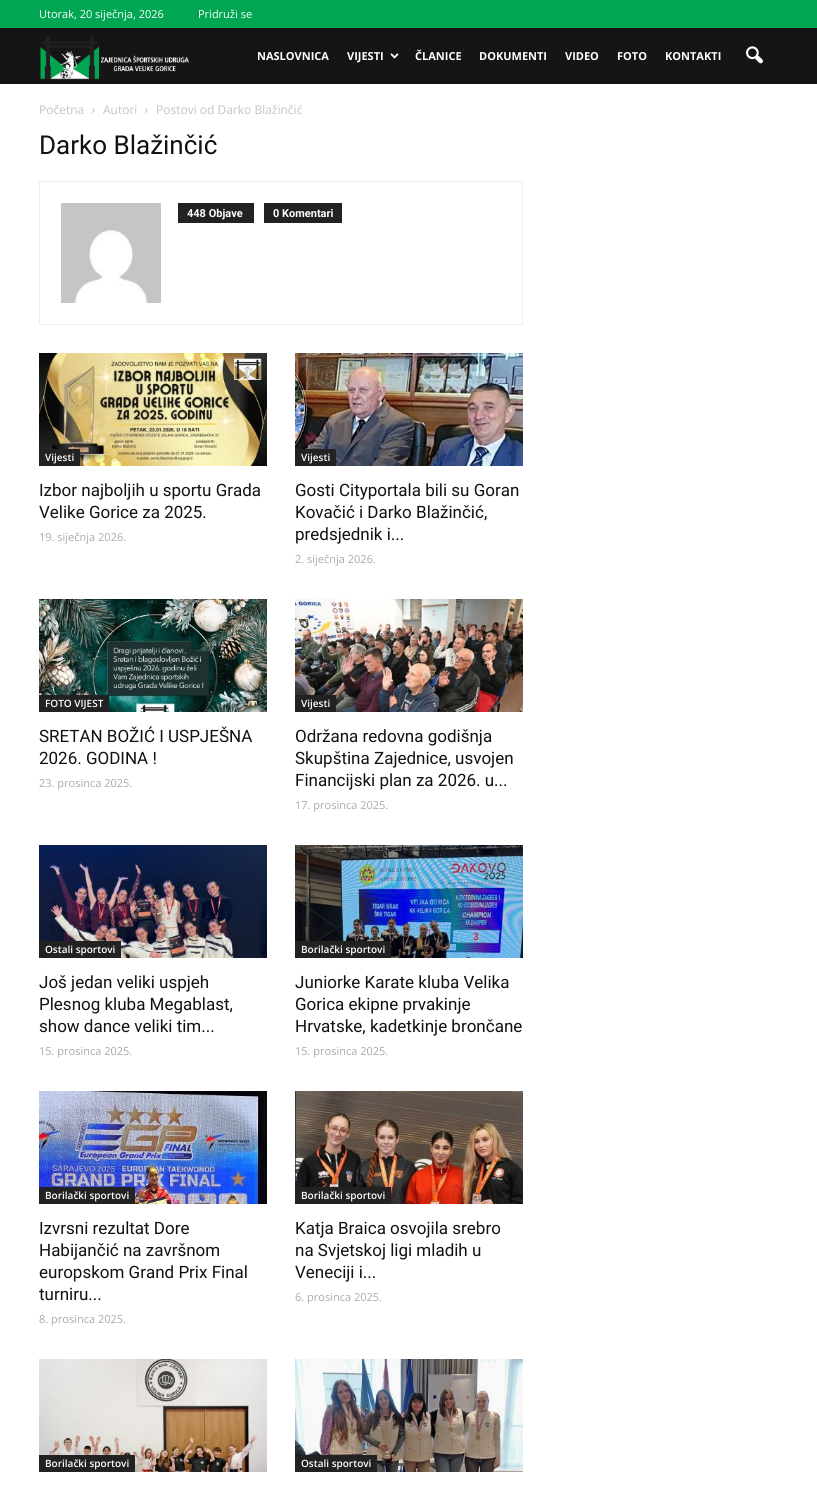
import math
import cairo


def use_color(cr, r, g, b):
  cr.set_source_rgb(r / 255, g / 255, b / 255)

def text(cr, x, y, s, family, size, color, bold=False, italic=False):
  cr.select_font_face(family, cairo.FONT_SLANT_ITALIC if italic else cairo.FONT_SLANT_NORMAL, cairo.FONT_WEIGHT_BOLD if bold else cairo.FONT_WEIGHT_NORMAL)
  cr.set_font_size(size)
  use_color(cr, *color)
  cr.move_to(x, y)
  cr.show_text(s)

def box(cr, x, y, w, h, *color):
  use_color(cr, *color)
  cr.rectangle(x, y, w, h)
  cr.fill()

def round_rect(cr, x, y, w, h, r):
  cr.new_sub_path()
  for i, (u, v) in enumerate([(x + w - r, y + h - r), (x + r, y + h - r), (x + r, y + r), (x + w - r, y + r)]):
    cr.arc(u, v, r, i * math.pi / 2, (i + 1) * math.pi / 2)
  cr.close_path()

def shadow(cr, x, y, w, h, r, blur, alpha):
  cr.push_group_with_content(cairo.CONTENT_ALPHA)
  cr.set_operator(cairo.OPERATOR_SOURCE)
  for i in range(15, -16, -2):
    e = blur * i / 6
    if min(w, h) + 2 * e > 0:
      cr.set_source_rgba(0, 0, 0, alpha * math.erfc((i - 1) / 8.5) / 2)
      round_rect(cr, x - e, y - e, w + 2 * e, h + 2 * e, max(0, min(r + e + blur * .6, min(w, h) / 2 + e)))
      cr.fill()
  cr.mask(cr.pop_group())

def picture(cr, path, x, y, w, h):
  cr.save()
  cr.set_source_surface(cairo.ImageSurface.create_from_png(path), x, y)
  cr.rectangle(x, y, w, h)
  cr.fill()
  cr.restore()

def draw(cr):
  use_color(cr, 255, 255, 255)
  cr.paint()
  box(cr, 0, 28, 817, 56, 21, 21, 21)
  picture(cr, "img_01.png", 40, 36, 149, 44)
  use_color(cr, 0, 0, 0)
  shadow(cr, 0, 0, 817, 28, 0, 2.5, 0.6)
  box(cr, 0, 0, 817, 28, 0, 166, 81)
  picture(cr, "img_02.png", 390, 53, 9, 6)
  picture(cr, "img_03.png", 746, 46, 17, 18)
  picture(cr, "img_04.png", 92, 108, 3, 5)
  picture(cr, "img_04.png", 145, 108, 3, 5)
  cr.rectangle(39.5, 181.5, 483, 143)
  use_color(cr, 237, 237, 237)
  cr.set_line_width(1)
  cr.stroke()
  picture(cr, "img_05.png", 61, 203, 100, 100)
  box(cr, 178, 203, 76, 20, 34, 34, 34)
  box(cr, 264, 203, 78, 20, 34, 34, 34)
  picture(cr, "img_06.png", 39, 353, 228, 113)
  box(cr, 39, 449, 41, 17, 34, 34, 34)
  picture(cr, "img_07.png", 295, 353, 228, 113)
  box(cr, 295, 449, 41, 17, 34, 34, 34)
  picture(cr, "img_08.png", 39, 599, 228, 113)
  box(cr, 39, 695, 70, 17, 34, 34, 34)
  picture(cr, "img_09.png", 295, 599, 228, 113)
  box(cr, 295, 695, 41, 17, 34, 34, 34)
  picture(cr, "img_10.png", 39, 845, 228, 113)
  box(cr, 39, 941, 82, 17, 34, 34, 34)
  picture(cr, "img_11.png", 295, 845, 228, 113)
  box(cr, 295, 941, 96, 17, 34, 34, 34)
  picture(cr, "img_12.png", 39, 1091, 228, 113)
  box(cr, 39, 1187, 96, 17, 34, 34, 34)
  picture(cr, "img_13.png", 295, 1091, 228, 113)
  box(cr, 295, 1187, 96, 17, 34, 34, 34)
  picture(cr, "img_14.png", 39, 1359, 228, 113)
  box(cr, 39, 1455, 96, 17, 34, 34, 34)
  picture(cr, "img_15.png", 295, 1359, 228, 113)
  box(cr, 295, 1455, 82, 17, 34, 34, 34)
  text(cr, 39, 18, "Utorak, 20 siječnja, 2026", "Open Sans", 11, (255, 255, 255))
  text(cr, 198, 18, "Pridruži se", "Open Sans", 11, (255, 255, 255))
  text(cr, 257, 60, "NASLOVNICA", "Open Sans", 11, (255, 255, 255), bold=True)
  text(cr, 347, 60, "VIJESTI", "Open Sans", 11, (255, 255, 255), bold=True)
  text(cr, 415, 60, "ČLANICE", "Open Sans", 11, (255, 255, 255), bold=True)
  text(cr, 479, 60, "DOKUMENTI", "Open Sans", 11, (255, 255, 255), bold=True)
  text(cr, 565, 60, "VIDEO", "Open Sans", 11, (255, 255, 255), bold=True)
  text(cr, 617, 60, "FOTO", "Open Sans", 11, (255, 255, 255), bold=True)
  text(cr, 665, 60, "KONTAKTI", "Open Sans", 11, (255, 255, 255), bold=True)
  text(cr, 39, 114, "Početna", "Open Sans", 12, (195, 195, 195))
  text(cr, 103, 114, "Autori", "Open Sans", 12, (195, 195, 195))
  text(cr, 156, 114, "Postovi od Darko Blažinčić", "Open Sans", 12, (195, 195, 195))
  text(cr, 39, 154, "Darko Blažinčić", "Roboto", 26, (17, 17, 17))
  text(cr, 187, 217, "448 Objave", "Roboto", 11, (255, 255, 255), bold=True)
  text(cr, 273, 217, "0 Komentari", "Roboto", 11, (255, 255, 255), bold=True)
  text(cr, 45, 461, "Vijesti", "Open Sans SemiBold", 10, (255, 255, 255))
  text(cr, 39, 496, "Izbor najboljih u sportu Grada", "Roboto", 17, (17, 17, 17))
  text(cr, 39, 518, "Velike Gorice za 2025.", "Roboto", 17, (17, 17, 17))
  text(cr, 39, 541, "19. siječnja 2026.", "Open Sans", 11, (170, 170, 170))
  text(cr, 301, 461, "Vijesti", "Open Sans SemiBold", 10, (255, 255, 255))
  text(cr, 295, 496, "Gosti Cityportala bili su Goran", "Roboto", 17, (17, 17, 17))
  text(cr, 295, 518, "Kovačić i Darko Blažinčić,", "Roboto", 17, (17, 17, 17))
  text(cr, 295, 540, "predsjednik i...", "Roboto", 17, (17, 17, 17))
  text(cr, 295, 563, "2. siječnja 2026.", "Open Sans", 11, (170, 170, 170))
  text(cr, 45, 707, "FOTO VIJEST", "Open Sans SemiBold", 10, (255, 255, 255))
  text(cr, 39, 742, "SRETAN BOŽIĆ I USPJEŠNA", "Roboto", 17, (17, 17, 17))
  text(cr, 39, 764, "2026. GODINA !", "Roboto", 17, (17, 17, 17))
  text(cr, 39, 787, "23. prosinca 2025.", "Open Sans", 11, (170, 170, 170))
  text(cr, 301, 707, "Vijesti", "Open Sans SemiBold", 10, (255, 255, 255))
  text(cr, 295, 742, "Održana redovna godišnja", "Roboto", 17, (17, 17, 17))
  text(cr, 295, 764, "Skupština Zajednice, usvojen", "Roboto", 17, (17, 17, 17))
  text(cr, 295, 786, "Financijski plan za 2026. u...", "Roboto", 17, (17, 17, 17))
  text(cr, 295, 809, "17. prosinca 2025.", "Open Sans", 11, (170, 170, 170))
  text(cr, 45, 953, "Ostali sportovi", "Open Sans SemiBold", 10, (255, 255, 255))
  text(cr, 39, 988, "Još jedan veliki uspjeh", "Roboto", 17, (17, 17, 17))
  text(cr, 39, 1010, "Plesnog kluba Megablast,", "Roboto", 17, (17, 17, 17))
  text(cr, 39, 1032, "show dance veliki tim...", "Roboto", 17, (17, 17, 17))
  text(cr, 39, 1055, "15. prosinca 2025.", "Open Sans", 11, (170, 170, 170))
  text(cr, 301, 953, "Borilački sportovi", "Open Sans SemiBold", 10, (255, 255, 255))
  text(cr, 295, 988, "Juniorke Karate kluba Velika", "Roboto", 17, (17, 17, 17))
  text(cr, 295, 1010, "Gorica ekipne prvakinje", "Roboto", 17, (17, 17, 17))
  text(cr, 295, 1032, "Hrvatske, kadetkinje brončane", "Roboto", 17, (17, 17, 17))
  text(cr, 295, 1055, "15. prosinca 2025.", "Open Sans", 11, (170, 170, 170))
  text(cr, 45, 1199, "Borilački sportovi", "Open Sans SemiBold", 10, (255, 255, 255))
  text(cr, 39, 1234, "Izvrsni rezultat Dore", "Roboto", 17, (17, 17, 17))
  text(cr, 39, 1256, "Habijančić na završnom", "Roboto", 17, (17, 17, 17))
  text(cr, 39, 1278, "europskom Grand Prix Final", "Roboto", 17, (17, 17, 17))
  text(cr, 39, 1300, "turniru...", "Roboto", 17, (17, 17, 17))
  text(cr, 39, 1323, "8. prosinca 2025.", "Open Sans", 11, (170, 170, 170))
  text(cr, 301, 1199, "Borilački sportovi", "Open Sans SemiBold", 10, (255, 255, 255))
  text(cr, 295, 1234, "Katja Braica osvojila srebro", "Roboto", 17, (17, 17, 17))
  text(cr, 295, 1256, "na Svjetskoj ligi mladih u", "Roboto", 17, (17, 17, 17))
  text(cr, 295, 1278, "Veneciji i...", "Roboto", 17, (17, 17, 17))
  text(cr, 295, 1301, "6. prosinca 2025.", "Open Sans", 11, (170, 170, 170))
  text(cr, 45, 1467, "Borilački sportovi", "Open Sans SemiBold", 10, (255, 255, 255))
  text(cr, 301, 1467, "Ostali sportovi", "Open Sans SemiBold", 10, (255, 255, 255))


surface = cairo.ImageSurface(cairo.FORMAT_RGB24, 817, 1486)
cr = cairo.Context(surface)
options = cairo.FontOptions()
options.set_hint_metrics(cairo.HINT_METRICS_OFF)
options.set_hint_style(cairo.HINT_STYLE_NONE)
cr.set_font_options(options)
cr.set_miter_limit(4)
draw(cr)
surface.write_to_png("out.png")
